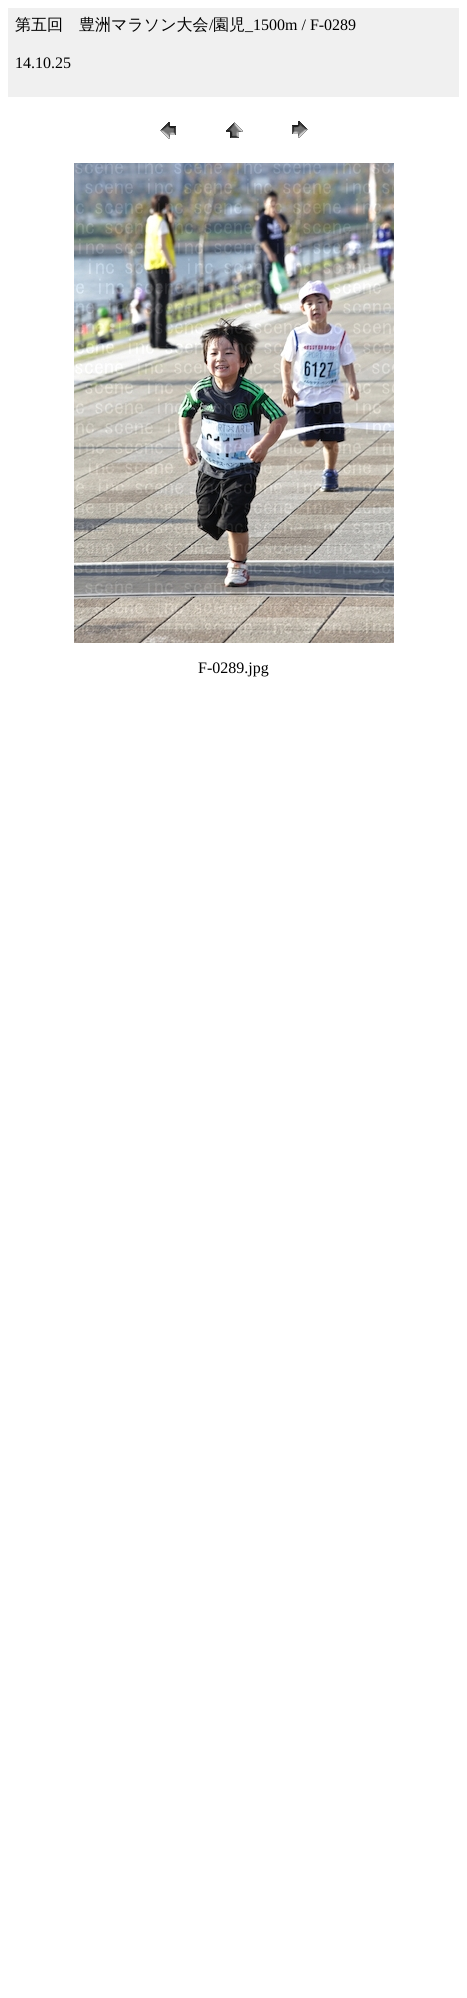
import math
import cairo


def use_color(cr, r, g, b):
  cr.set_source_rgb(r / 255, g / 255, b / 255)

def text(cr, x, y, s, family, size, color, bold=False, italic=False):
  cr.select_font_face(family, cairo.FONT_SLANT_ITALIC if italic else cairo.FONT_SLANT_NORMAL, cairo.FONT_WEIGHT_BOLD if bold else cairo.FONT_WEIGHT_NORMAL)
  cr.set_font_size(size)
  use_color(cr, *color)
  cr.move_to(x, y)
  cr.show_text(s)

def box(cr, x, y, w, h, *color):
  use_color(cr, *color)
  cr.rectangle(x, y, w, h)
  cr.fill()

def picture(cr, path, x, y, w, h):
  cr.save()
  cr.set_source_surface(cairo.ImageSurface.create_from_png(path), x, y)
  cr.rectangle(x, y, w, h)
  cr.fill()
  cr.restore()

def draw(cr):
  use_color(cr, 255, 255, 255)
  cr.paint()
  box(cr, 8, 8, 451, 89, 240, 240, 240)
  picture(cr, "img_01.png", 160, 122, 16, 17)
  picture(cr, "img_02.png", 226, 122, 17, 16)
  picture(cr, "img_03.png", 292, 121, 16, 17)
  picture(cr, "img_04.png", 74, 163, 320, 480)
  text(cr, 15, 30, "第五回　豊洲マラソン大会", "WenQuanYi Zen Hei Medium", 16, (0, 0, 0))
  text(cr, 209, 30, "/", "Liberation Serif", 16, (0, 0, 0))
  text(cr, 213, 30, "園児", "WenQuanYi Zen Hei Medium", 16, (0, 0, 0))
  text(cr, 245, 30, "_1500m / F-0289", "Liberation Serif", 16, (0, 0, 0))
  text(cr, 15, 68, "14.10.25", "Liberation Serif", 16, (0, 0, 0))
  text(cr, 198, 673, "F-0289.jpg", "Liberation Serif", 16, (0, 0, 0))


surface = cairo.ImageSurface(cairo.FORMAT_RGB24, 467, 1998)
cr = cairo.Context(surface)
options = cairo.FontOptions()
options.set_hint_metrics(cairo.HINT_METRICS_OFF)
options.set_hint_style(cairo.HINT_STYLE_NONE)
cr.set_font_options(options)
cr.set_miter_limit(4)
draw(cr)
surface.write_to_png("out.png")
